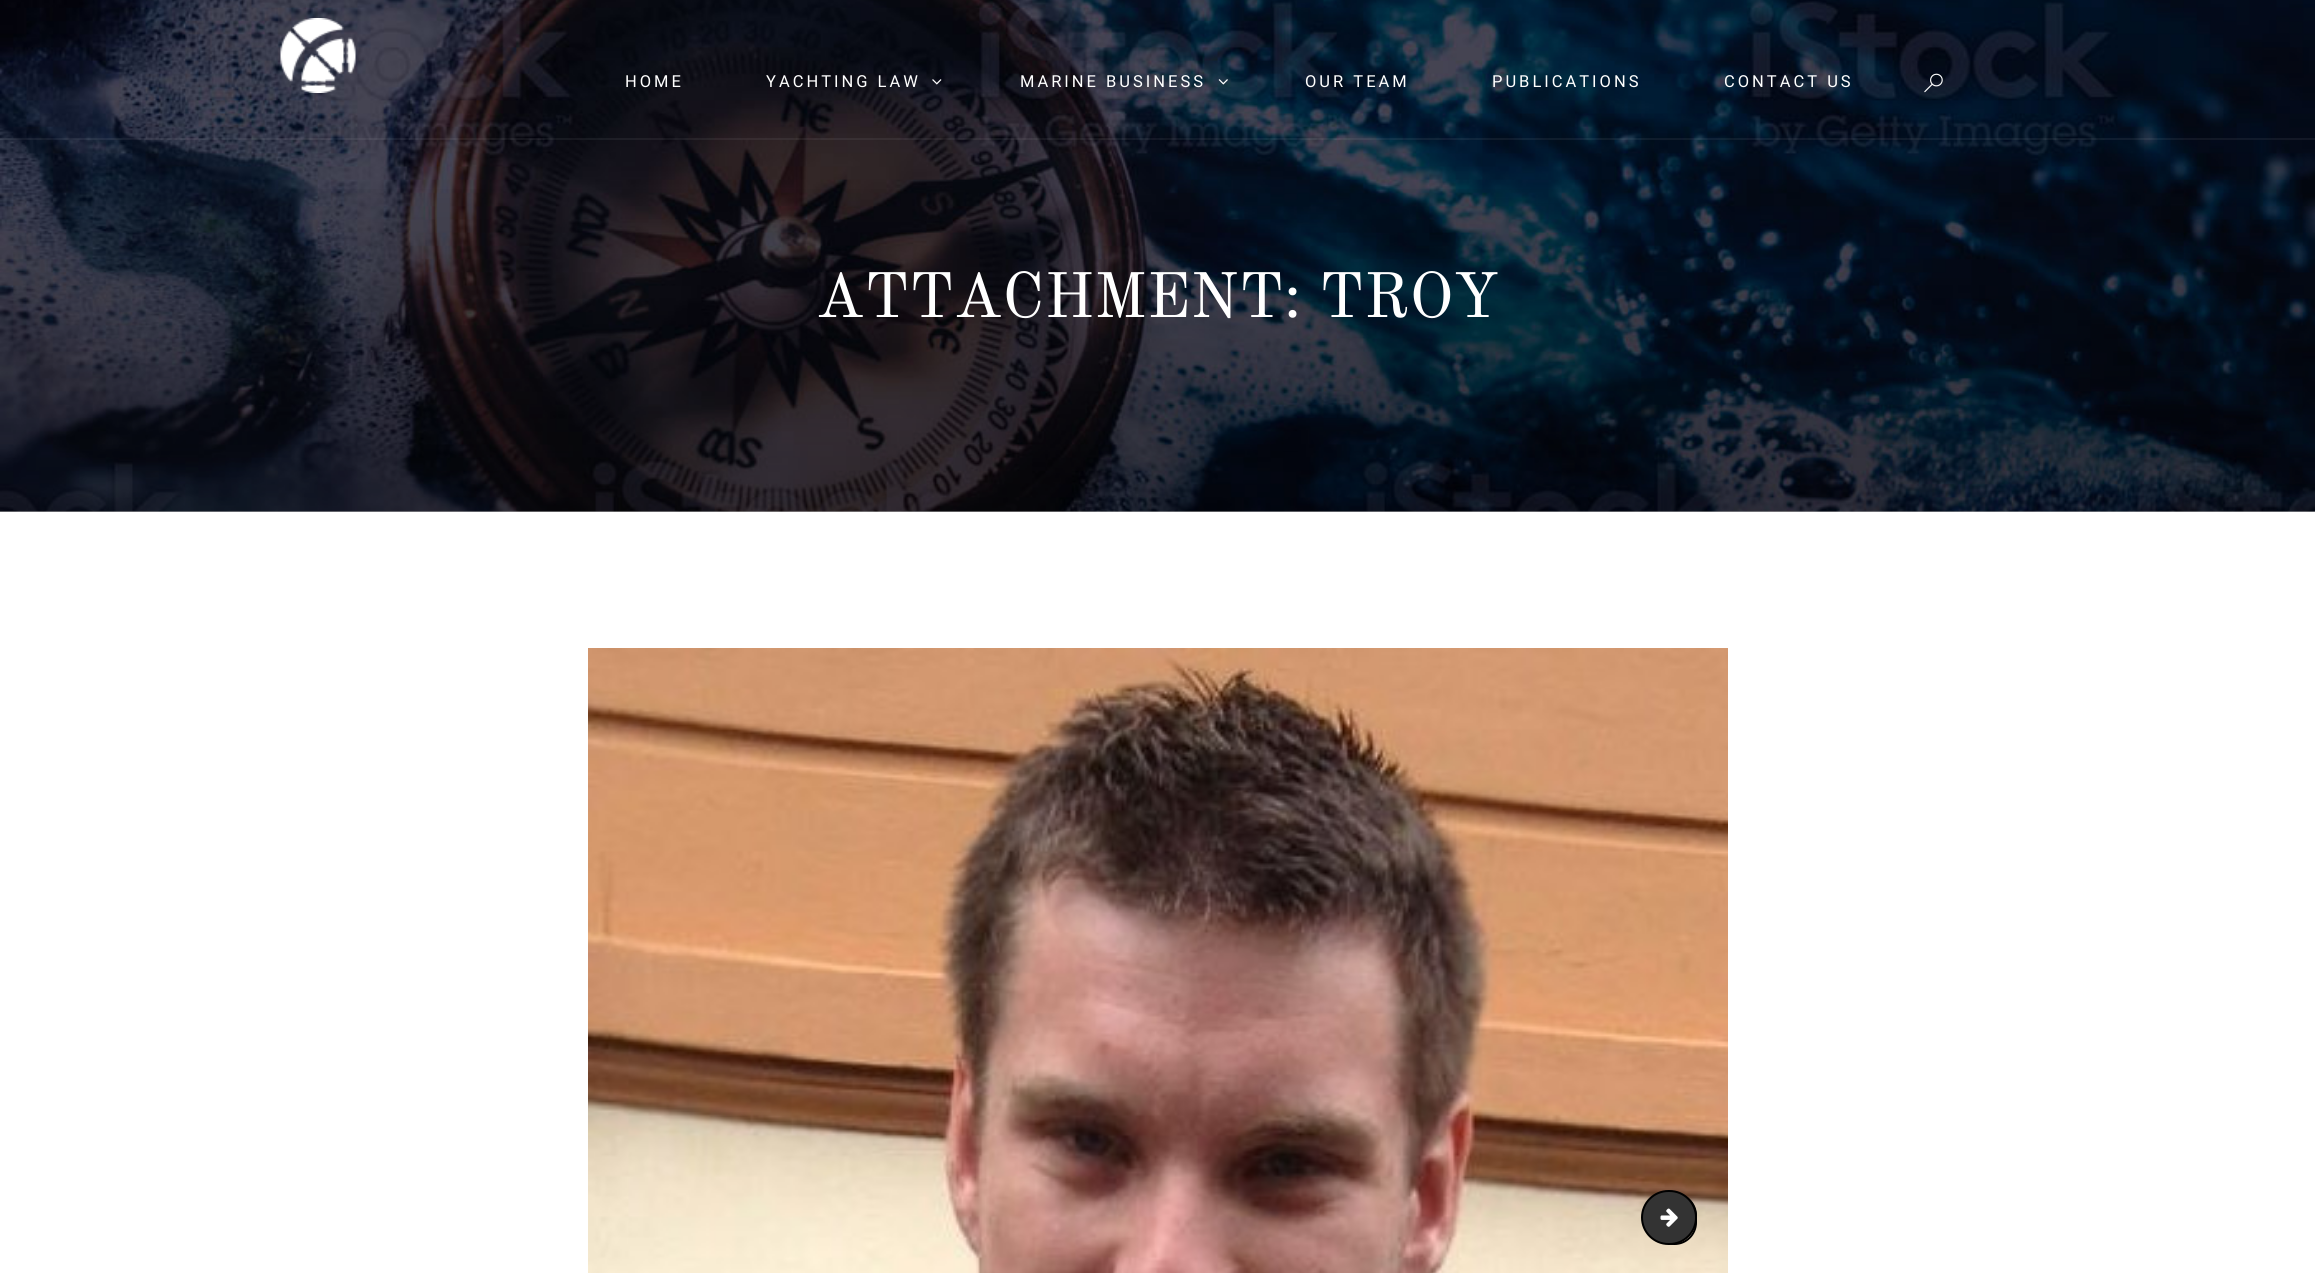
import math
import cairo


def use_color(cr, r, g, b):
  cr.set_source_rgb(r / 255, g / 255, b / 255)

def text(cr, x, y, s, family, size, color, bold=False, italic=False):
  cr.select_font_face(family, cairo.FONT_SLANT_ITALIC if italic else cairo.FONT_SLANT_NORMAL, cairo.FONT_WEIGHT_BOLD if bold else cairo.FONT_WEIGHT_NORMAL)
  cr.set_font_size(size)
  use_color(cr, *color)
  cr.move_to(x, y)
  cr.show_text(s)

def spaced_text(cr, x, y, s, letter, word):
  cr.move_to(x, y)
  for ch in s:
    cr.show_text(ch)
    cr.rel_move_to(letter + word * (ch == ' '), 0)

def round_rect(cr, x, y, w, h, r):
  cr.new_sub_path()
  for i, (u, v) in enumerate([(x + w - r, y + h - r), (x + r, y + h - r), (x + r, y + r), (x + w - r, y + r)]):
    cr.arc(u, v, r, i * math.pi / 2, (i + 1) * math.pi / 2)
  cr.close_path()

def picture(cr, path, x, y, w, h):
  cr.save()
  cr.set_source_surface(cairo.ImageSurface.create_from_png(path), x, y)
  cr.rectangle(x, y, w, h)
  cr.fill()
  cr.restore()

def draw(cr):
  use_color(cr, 255, 255, 255)
  cr.paint()
  picture(cr, "img_01.png", 0, 0, 2315, 512)
  cr.set_source_rgba(1, 1, 1, 0.06)
  cr.rectangle(0, 138, 2315, 2)
  cr.fill()
  picture(cr, "img_02.png", 280, 18, 76, 75)
  picture(cr, "img_03.png", 932, 79, 10, 6)
  picture(cr, "img_04.png", 1218, 79, 10, 6)
  picture(cr, "img_05.png", 1924, 73, 19, 20)
  gradient = cairo.LinearGradient(1158, 512, 1158, 0)
  gradient.add_color_stop_rgba(0, 0, 0, 0, 0.3)
  gradient.add_color_stop_rgba(0.7, 0, 0, 0, 0)
  cr.set_source(gradient)
  cr.rectangle(0, 189, 2315, 323)
  cr.fill()
  picture(cr, "img_06.png", 588, 648, 1140, 625)
  round_rect(cr, 1653, 1194, 43, 50, 21.5)
  use_color(cr, 0, 0, 0)
  cr.stroke()
  use_color(cr, 51, 51, 51)
  round_rect(cr, 1642, 1191, 54, 53, 26.5)
  cr.fill_preserve()
  use_color(cr, 0, 0, 0)
  cr.stroke()
  picture(cr, "img_07.png", 1660, 1208, 18, 19)
  cr.select_font_face("Roboto")
  cr.set_font_size(16.5)
  use_color(cr, 255, 255, 255)
  spaced_text(cr, 625, 87, "HOME", 3, 0)
  spaced_text(cr, 766, 87, "YACHTING LAW", 3, 0)
  spaced_text(cr, 1020, 87, "MARINE BUSINESS", 3, 0)
  spaced_text(cr, 1305, 87, "OUR TEAM", 3, 0)
  spaced_text(cr, 1492, 87, "PUBLICATIONS", 3, 0)
  spaced_text(cr, 1724, 87, "CONTACT US", 3, 0)
  text(cr, 816, 317, "ATTACHMENT: TROY", "Old Standard TT", 63, (255, 255, 255))


surface = cairo.ImageSurface(cairo.FORMAT_RGB24, 2315, 1273)
cr = cairo.Context(surface)
options = cairo.FontOptions()
options.set_hint_metrics(cairo.HINT_METRICS_OFF)
options.set_hint_style(cairo.HINT_STYLE_NONE)
cr.set_font_options(options)
cr.set_miter_limit(4)
draw(cr)
surface.write_to_png("out.png")
